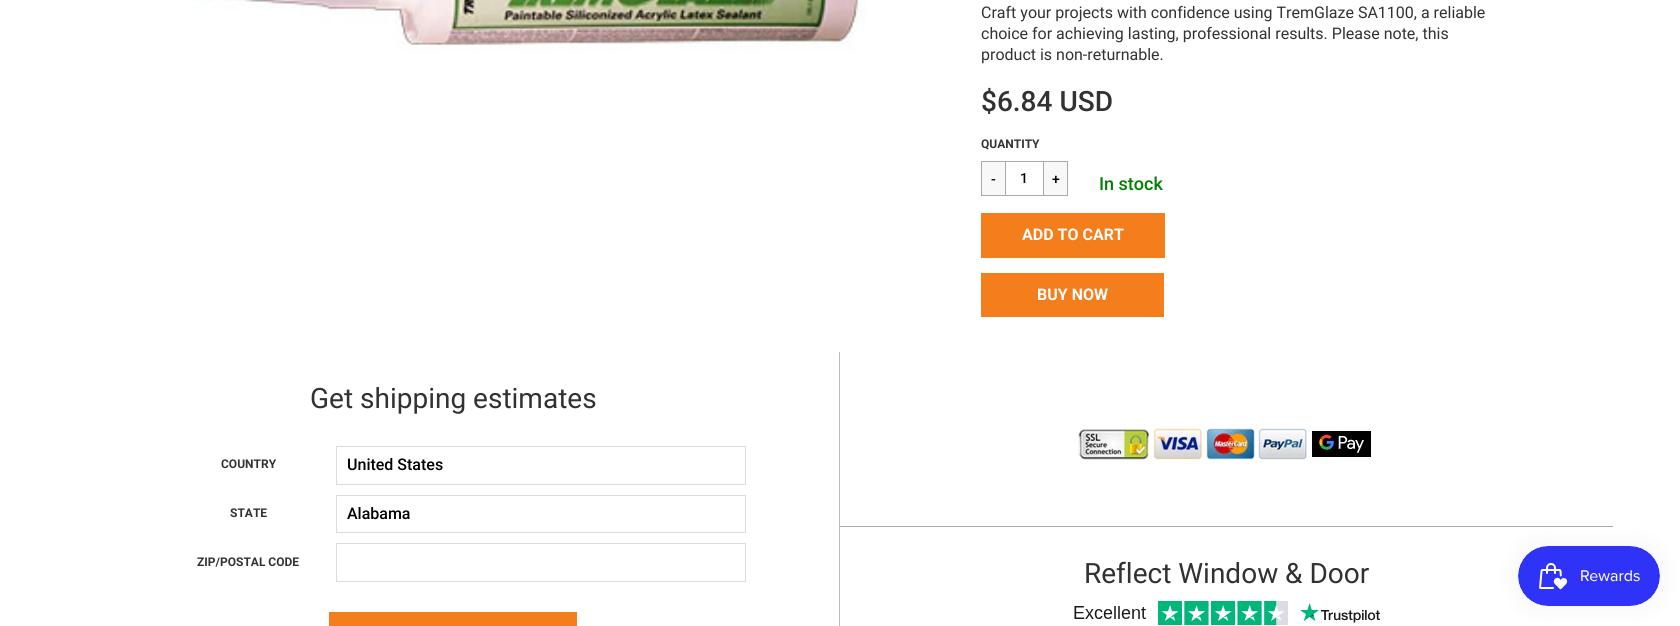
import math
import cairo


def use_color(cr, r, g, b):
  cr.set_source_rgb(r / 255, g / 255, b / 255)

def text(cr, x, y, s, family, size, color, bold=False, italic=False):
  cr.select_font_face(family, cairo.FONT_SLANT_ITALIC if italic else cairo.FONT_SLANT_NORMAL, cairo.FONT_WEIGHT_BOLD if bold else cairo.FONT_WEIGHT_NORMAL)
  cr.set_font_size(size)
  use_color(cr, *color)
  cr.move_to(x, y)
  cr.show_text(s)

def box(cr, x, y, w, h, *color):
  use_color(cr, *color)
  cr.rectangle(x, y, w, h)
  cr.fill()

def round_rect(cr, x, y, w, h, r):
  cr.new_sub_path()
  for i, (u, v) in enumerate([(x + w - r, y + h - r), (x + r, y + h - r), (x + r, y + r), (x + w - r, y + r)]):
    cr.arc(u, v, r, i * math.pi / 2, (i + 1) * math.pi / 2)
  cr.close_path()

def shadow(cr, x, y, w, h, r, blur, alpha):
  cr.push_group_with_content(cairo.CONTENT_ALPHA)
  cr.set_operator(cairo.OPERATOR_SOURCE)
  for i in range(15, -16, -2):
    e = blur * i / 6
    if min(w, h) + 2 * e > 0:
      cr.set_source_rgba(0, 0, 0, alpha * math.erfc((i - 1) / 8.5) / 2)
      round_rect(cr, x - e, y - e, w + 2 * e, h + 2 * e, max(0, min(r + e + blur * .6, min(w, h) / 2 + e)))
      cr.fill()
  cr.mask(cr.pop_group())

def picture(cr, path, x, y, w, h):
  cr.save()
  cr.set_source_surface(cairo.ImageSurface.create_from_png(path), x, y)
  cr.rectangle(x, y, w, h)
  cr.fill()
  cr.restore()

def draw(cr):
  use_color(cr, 255, 255, 255)
  cr.paint()
  picture(cr, "img_01.png", 192, 0, 674, 51)
  box(cr, 1004, 161, 40, 1, 170, 170, 170)
  box(cr, 1004, 195, 40, 1, 170, 170, 170)
  use_color(cr, 248, 248, 248)
  cr.rectangle(981.5, 161.5, 24, 34)
  cr.fill_preserve()
  use_color(cr, 170, 170, 170)
  cr.set_line_width(1)
  cr.stroke()
  use_color(cr, 248, 248, 248)
  cr.rectangle(1043.5, 161.5, 24, 34)
  cr.fill_preserve()
  use_color(cr, 170, 170, 170)
  cr.stroke()
  box(cr, 981, 213, 184, 45, 244, 126, 28)
  box(cr, 981, 273, 183, 44, 244, 126, 28)
  box(cr, 839, 352, 1, 274, 189, 189, 189)
  cr.rectangle(336.5, 446.5, 409, 38)
  use_color(cr, 220, 220, 220)
  cr.stroke()
  cr.rectangle(336.5, 495.5, 409, 37)
  cr.stroke()
  cr.rectangle(336.5, 543.5, 409, 38)
  cr.stroke()
  box(cr, 329, 612, 248, 14, 244, 126, 28)
  picture(cr, "img_02.png", 1078, 428, 293, 32)
  box(cr, 840, 526, 773, 1, 170, 170, 170)
  picture(cr, "img_03.png", 1074, 601, 306, 24)
  use_color(cr, 0, 0, 0)
  shadow(cr, 1518, 546, 142, 60, 30, 12.5, 0.05)
  picture(cr, "img_04.png", 1518, 546, 142, 60)
  text(cr, 981, 18, "Craft your projects with confidence using TremGlaze SA1100, a reliable", "Roboto", 16, (50, 50, 50))
  text(cr, 981, 39, "choice for achieving lasting, professional results. Please note, this", "Roboto", 16, (50, 50, 50))
  text(cr, 981, 60, "product is non-returnable.", "Roboto", 16, (50, 50, 50))
  text(cr, 981, 111, "$6.84 USD", "Roboto Medium", 28, (50, 50, 50))
  text(cr, 981, 148, "QUANTITY", "Roboto", 12, (50, 50, 50), bold=True)
  text(cr, 991, 184, "-", "Roboto Medium", 14, (0, 0, 0))
  text(cr, 1020, 183, "1", "Roboto Medium", 14, (0, 0, 0))
  text(cr, 1052, 184, "+", "Roboto Medium", 14, (0, 0, 0))
  text(cr, 1099, 190, "In stock", "Roboto Medium", 18, (0, 128, 0))
  text(cr, 1022, 240, "ADD TO CART", "Roboto", 16, (255, 255, 255), bold=True)
  text(cr, 1037, 300, "BUY NOW", "Roboto", 16, (255, 255, 255), bold=True)
  text(cr, 310, 408, "Get shipping estimates", "Roboto", 28, (50, 50, 50))
  text(cr, 221, 468, "COUNTRY", "Roboto", 12, (50, 50, 50), bold=True)
  text(cr, 347, 470, "United States", "Roboto Medium", 16, (0, 0, 0))
  text(cr, 230, 517, "STATE", "Roboto", 12, (50, 50, 50), bold=True)
  text(cr, 347, 519, "Alabama", "Roboto Medium", 16, (0, 0, 0))
  text(cr, 197, 566, "ZIP/POSTAL CODE", "Roboto", 12, (50, 50, 50), bold=True)
  text(cr, 1084, 583, "Reflect Window & Door", "Roboto", 28, (50, 50, 50))


surface = cairo.ImageSurface(cairo.FORMAT_RGB24, 1680, 626)
cr = cairo.Context(surface)
options = cairo.FontOptions()
options.set_hint_metrics(cairo.HINT_METRICS_OFF)
options.set_hint_style(cairo.HINT_STYLE_NONE)
cr.set_font_options(options)
cr.set_miter_limit(4)
draw(cr)
surface.write_to_png("out.png")
